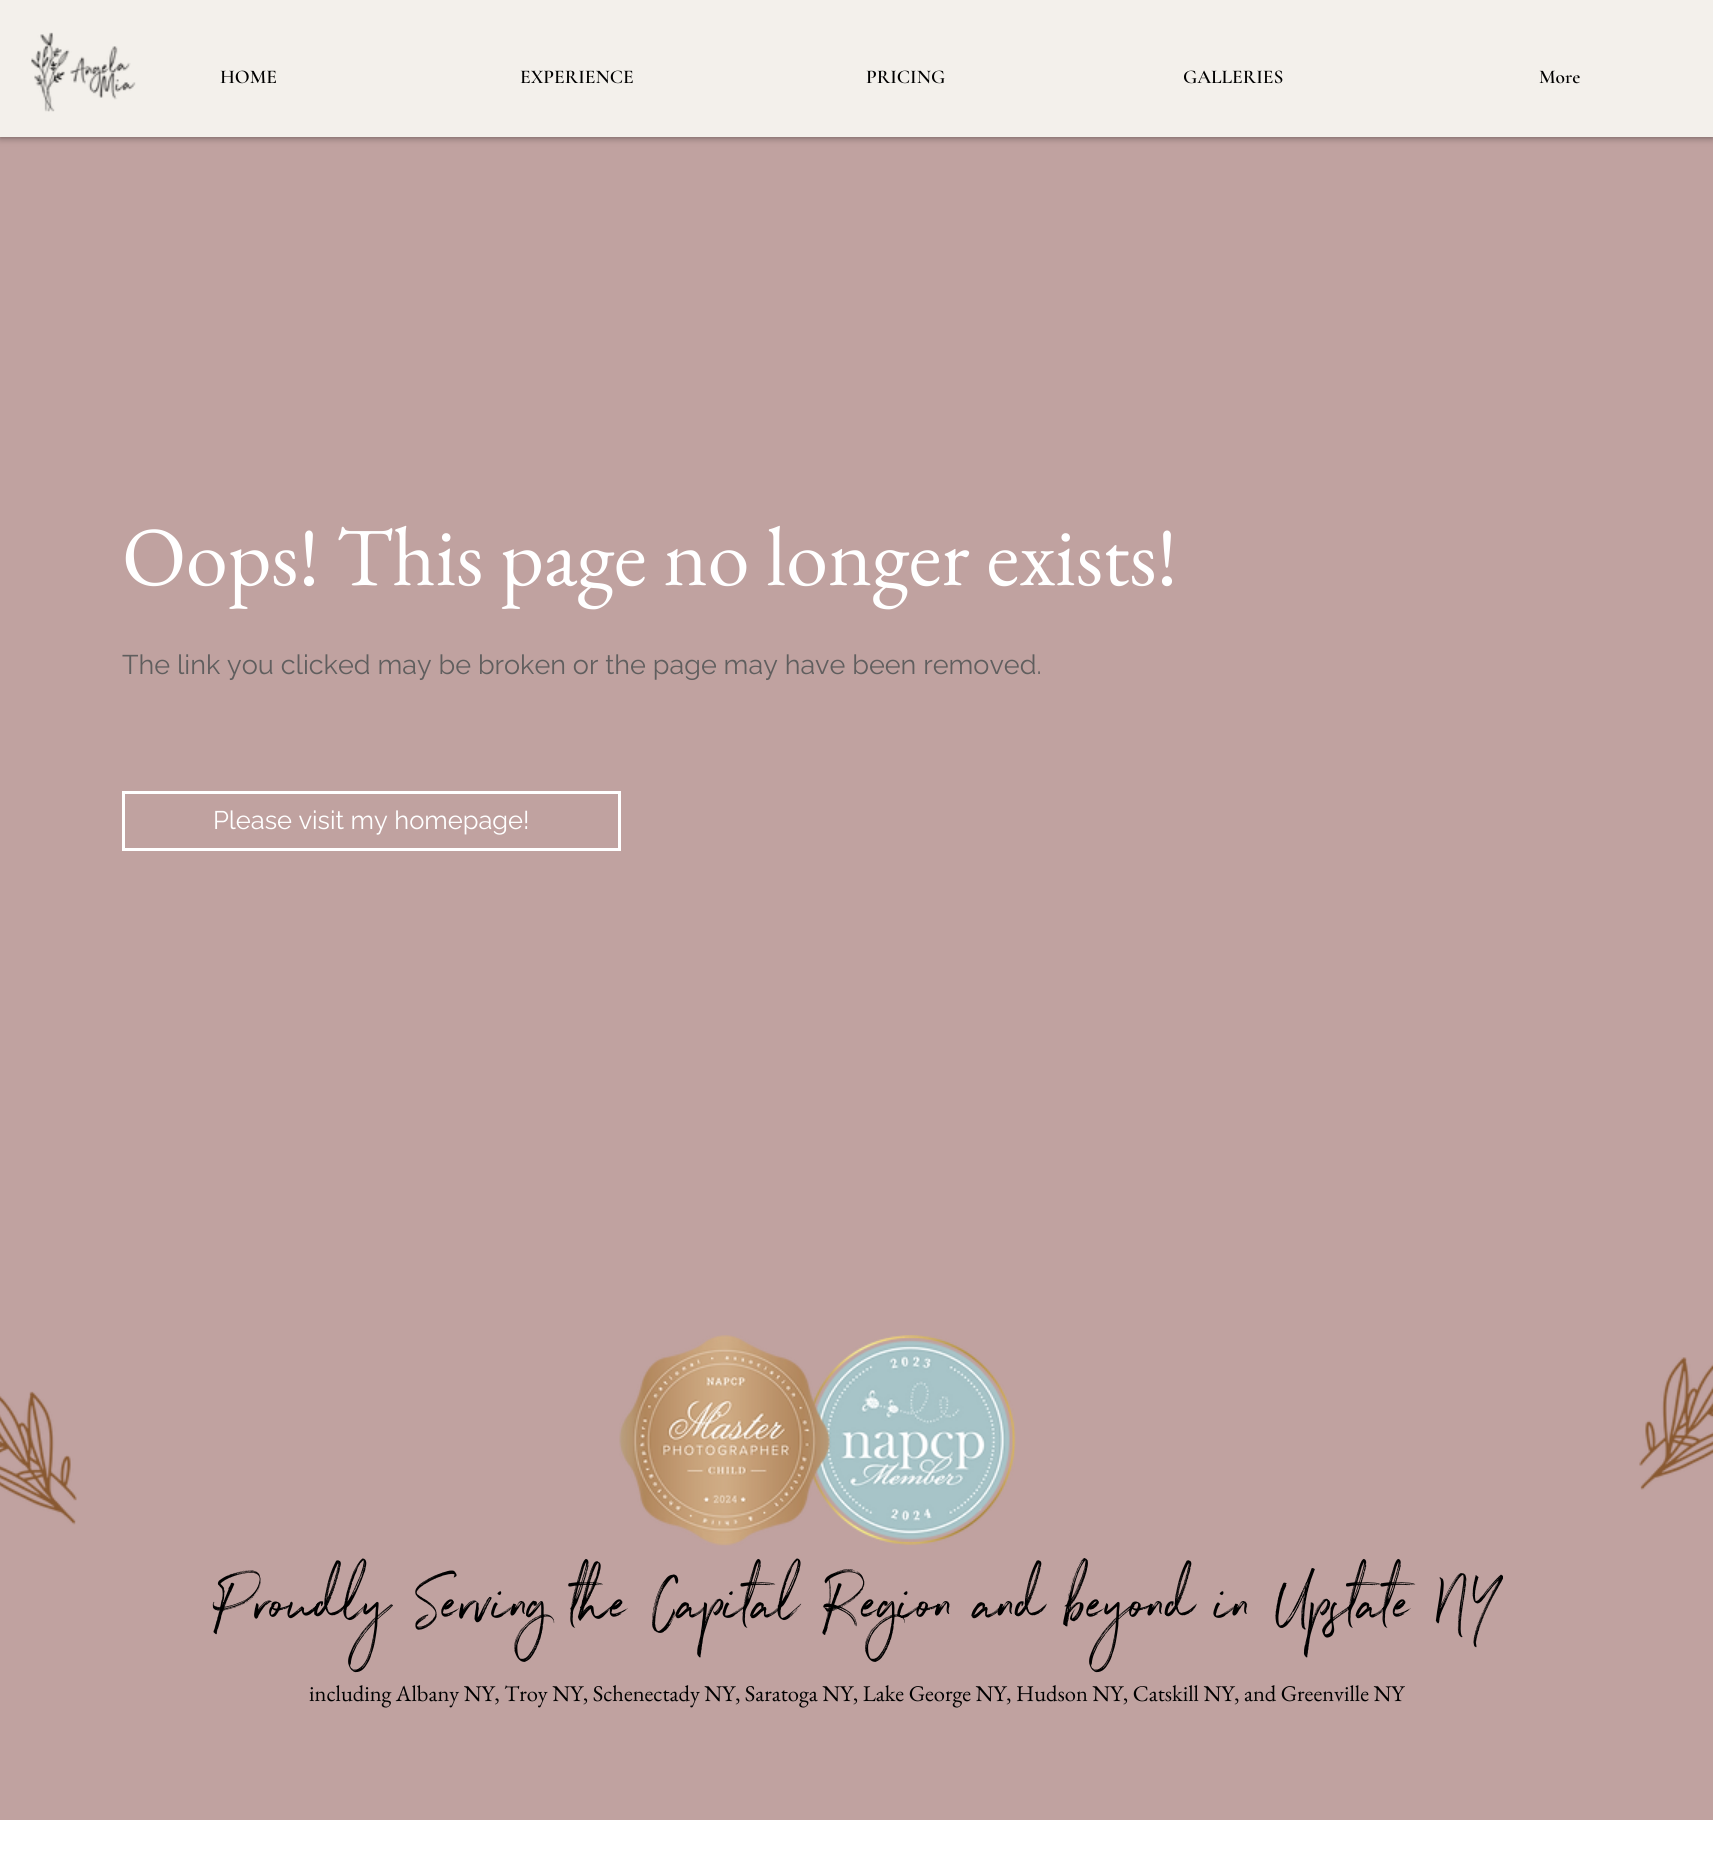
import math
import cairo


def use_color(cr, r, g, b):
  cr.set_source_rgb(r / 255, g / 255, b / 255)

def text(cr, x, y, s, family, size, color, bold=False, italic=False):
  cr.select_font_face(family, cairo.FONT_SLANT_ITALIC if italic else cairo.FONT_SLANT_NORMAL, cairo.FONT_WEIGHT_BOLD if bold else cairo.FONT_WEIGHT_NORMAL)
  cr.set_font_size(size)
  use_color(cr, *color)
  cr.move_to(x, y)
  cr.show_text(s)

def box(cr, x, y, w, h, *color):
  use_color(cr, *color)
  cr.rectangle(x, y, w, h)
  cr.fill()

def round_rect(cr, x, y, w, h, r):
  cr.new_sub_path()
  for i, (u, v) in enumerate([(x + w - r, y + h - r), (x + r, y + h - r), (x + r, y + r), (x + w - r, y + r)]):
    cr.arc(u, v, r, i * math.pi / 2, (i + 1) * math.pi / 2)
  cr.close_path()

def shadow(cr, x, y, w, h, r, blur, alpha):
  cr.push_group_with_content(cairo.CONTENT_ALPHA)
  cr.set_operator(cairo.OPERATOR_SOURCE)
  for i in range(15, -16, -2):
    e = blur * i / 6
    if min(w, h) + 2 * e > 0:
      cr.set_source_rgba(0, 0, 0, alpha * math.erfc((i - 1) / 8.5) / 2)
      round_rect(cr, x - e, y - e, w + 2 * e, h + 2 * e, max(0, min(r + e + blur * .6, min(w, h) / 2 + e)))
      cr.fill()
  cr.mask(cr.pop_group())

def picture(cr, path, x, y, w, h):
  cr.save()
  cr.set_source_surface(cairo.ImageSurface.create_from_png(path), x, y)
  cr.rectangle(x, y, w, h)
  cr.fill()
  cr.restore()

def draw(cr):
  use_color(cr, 255, 255, 255)
  cr.paint()
  box(cr, 0, 137, 1713, 1683, 192, 162, 160)
  use_color(cr, 0, 0, 0)
  shadow(cr, 0, 0, 1713, 137, 0, 4, 0.5)
  box(cr, 0, 0, 1713, 137, 243, 240, 235)
  picture(cr, "img_01.png", 31, 32, 105, 80)
  cr.rectangle(123.5, 792.5, 496, 57)
  use_color(cr, 255, 255, 255)
  cr.set_line_width(3)
  cr.stroke()
  picture(cr, "img_02.png", 0, 1391, 77, 134)
  picture(cr, "img_04.png", 811, 1335, 205, 210)
  picture(cr, "img_03.png", 619, 1335, 211, 211)
  picture(cr, "img_05.png", 1639, 1357, 74, 133)
  text(cr, 220, 83, "HOME", "Cormorant Garamond SemiBold", 19.5, (0, 0, 0))
  text(cr, 520, 83, "EXPERIENCE", "Cormorant Garamond SemiBold", 19.5, (0, 0, 0))
  text(cr, 866, 83, "PRICING", "Cormorant Garamond SemiBold", 19.5, (0, 0, 0))
  text(cr, 1183, 83, "GALLERIES", "Cormorant Garamond SemiBold", 19.5, (0, 0, 0))
  text(cr, 1539, 83, "More", "Cormorant Garamond SemiBold", 19.5, (0, 0, 0))
  text(cr, 122, 585, "Oops! This page no longer exists!", "EB Garamond", 84, (255, 255, 255))
  text(cr, 122, 674, "The link you clicked may be broken or the page may have been removed.", "Raleway", 27, (96, 94, 94))
  text(cr, 213, 829, "Please visit my homepage!", "Raleway", 25.5, (255, 255, 255))
  text(cr, 214, 1617, "Proudly Serving the Capital Region and beyond in Upstate NY", "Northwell", 70.5, (0, 0, 0))
  text(cr, 309, 1701, "including Albany NY, Troy NY, Schenectady NY, Saratoga NY, Lake George NY, Hudson NY, Catskill NY, and Greenville NY", "EB Garamond", 22.5, (0, 0, 0))


surface = cairo.ImageSurface(cairo.FORMAT_RGB24, 1713, 1858)
cr = cairo.Context(surface)
options = cairo.FontOptions()
options.set_hint_metrics(cairo.HINT_METRICS_OFF)
options.set_hint_style(cairo.HINT_STYLE_NONE)
cr.set_font_options(options)
cr.set_miter_limit(4)
draw(cr)
surface.write_to_png("out.png")
